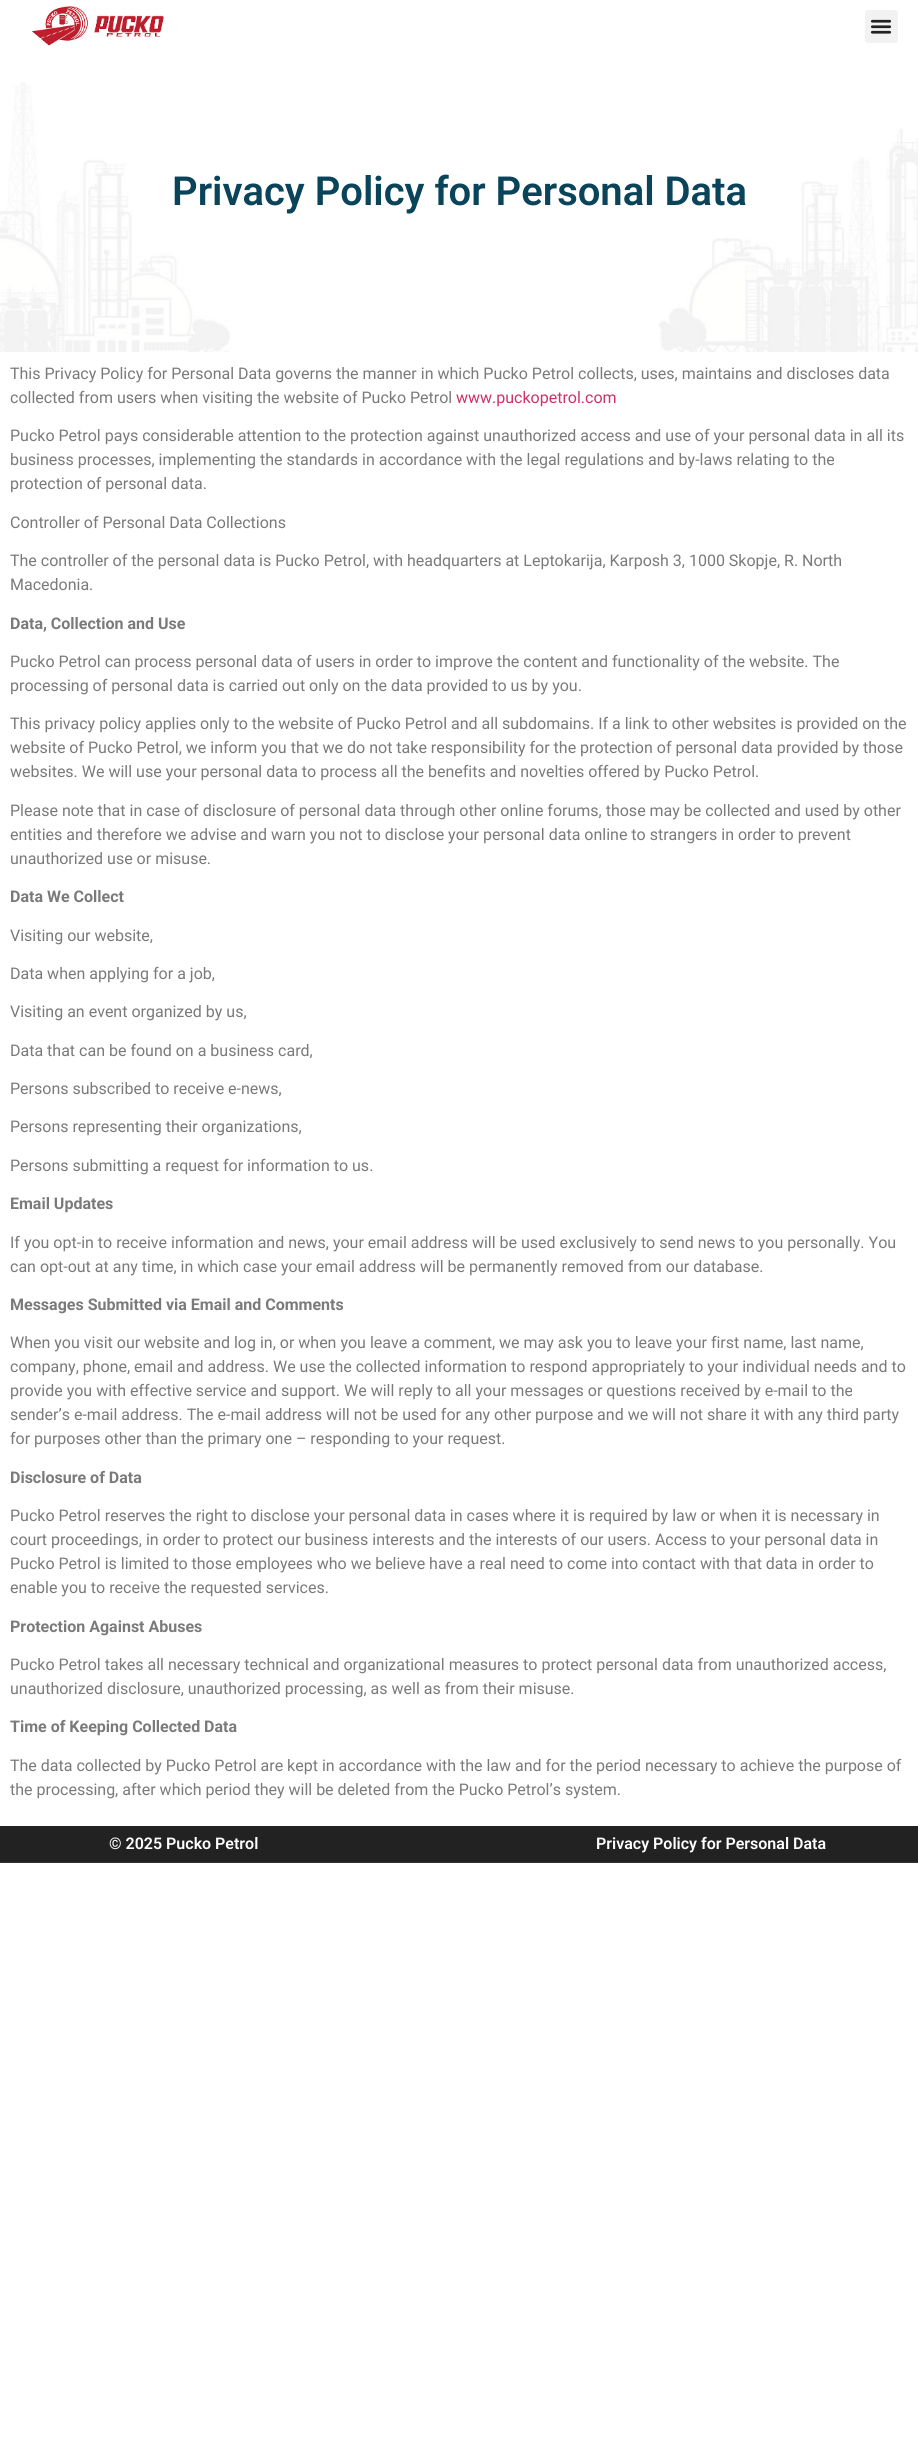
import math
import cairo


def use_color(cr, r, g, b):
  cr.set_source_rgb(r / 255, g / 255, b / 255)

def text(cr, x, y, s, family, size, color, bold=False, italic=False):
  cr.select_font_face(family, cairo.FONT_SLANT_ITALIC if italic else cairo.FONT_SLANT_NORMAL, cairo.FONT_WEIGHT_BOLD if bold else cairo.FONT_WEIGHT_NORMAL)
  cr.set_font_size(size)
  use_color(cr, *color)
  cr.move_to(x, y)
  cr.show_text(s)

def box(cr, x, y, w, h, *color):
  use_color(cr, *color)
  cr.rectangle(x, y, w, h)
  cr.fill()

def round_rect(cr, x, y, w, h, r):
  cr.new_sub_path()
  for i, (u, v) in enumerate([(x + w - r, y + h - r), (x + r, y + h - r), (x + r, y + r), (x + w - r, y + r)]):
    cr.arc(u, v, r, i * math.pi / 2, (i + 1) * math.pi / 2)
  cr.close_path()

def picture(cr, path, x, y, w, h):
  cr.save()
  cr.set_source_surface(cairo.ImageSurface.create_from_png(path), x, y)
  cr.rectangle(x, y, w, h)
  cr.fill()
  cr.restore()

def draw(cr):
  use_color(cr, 255, 255, 255)
  cr.paint()
  picture(cr, "img_01.png", 32, 6, 132, 40)
  use_color(cr, 242, 242, 242)
  round_rect(cr, 865, 10, 33, 33, 3)
  cr.fill()
  picture(cr, "img_02.png", 870, 19, 22, 15)
  picture(cr, "img_03.png", 0, 82, 918, 270)
  box(cr, 0, 1862, 918, 1, 51, 51, 51)
  box(cr, 0, 1826, 918, 36, 35, 34, 34)
  text(cr, 172, 205, "Privacy Policy for Personal Data", "Roboto SemiBold", 40, (9, 68, 90))
  text(cr, 10, 379, "This Privacy Policy for Personal Data governs the manner in which Pucko Petrol collects, uses, maintains and discloses data", "Roboto", 16, (122, 122, 122))
  text(cr, 10, 403, "collected from users when visiting the website of Pucko Petrol", "Roboto", 16, (122, 122, 122))
  text(cr, 456, 403, "www.puckopetrol.com", "Roboto", 16, (204, 51, 102))
  text(cr, 10, 441, "Pucko Petrol pays considerable attention to the protection against unauthorized access and use of your personal data in all its", "Roboto", 16, (122, 122, 122))
  text(cr, 10, 465, "business processes, implementing the standards in accordance with the legal regulations and by-laws relating to the", "Roboto", 16, (122, 122, 122))
  text(cr, 10, 489, "protection of personal data.", "Roboto", 16, (122, 122, 122))
  text(cr, 10, 528, "Controller of Personal Data Collections", "Roboto", 16, (122, 122, 122))
  text(cr, 10, 566, "The controller of the personal data is Pucko Petrol, with headquarters at Leptokarija, Karposh 3, 1000 Skopje, R. North", "Roboto", 16, (122, 122, 122))
  text(cr, 10, 590, "Macedonia.", "Roboto", 16, (122, 122, 122))
  text(cr, 10, 629, "Data, Collection and Use", "Roboto", 16, (122, 122, 122), bold=True)
  text(cr, 10, 667, "Pucko Petrol can process personal data of users in order to improve the content and functionality of the website. The", "Roboto", 16, (122, 122, 122))
  text(cr, 10, 691, "processing of personal data is carried out only on the data provided to us by you.", "Roboto", 16, (122, 122, 122))
  text(cr, 10, 729, "This privacy policy applies only to the website of Pucko Petrol and all subdomains. If a link to other websites is provided on the", "Roboto", 16, (122, 122, 122))
  text(cr, 10, 753, "website of Pucko Petrol, we inform you that we do not take responsibility for the protection of personal data provided by those", "Roboto", 16, (122, 122, 122))
  text(cr, 10, 777, "websites. We will use your personal data to process all the benefits and novelties offered by Pucko Petrol.", "Roboto", 16, (122, 122, 122))
  text(cr, 10, 816, "Please note that in case of disclosure of personal data through other online forums, those may be collected and used by other", "Roboto", 16, (122, 122, 122))
  text(cr, 10, 840, "entities and therefore we advise and warn you not to disclose your personal data online to strangers in order to prevent", "Roboto", 16, (122, 122, 122))
  text(cr, 10, 864, "unauthorized use or misuse.", "Roboto", 16, (122, 122, 122))
  text(cr, 10, 902, "Data We Collect", "Roboto", 16, (122, 122, 122), bold=True)
  text(cr, 10, 941, "Visiting our website,", "Roboto", 16, (122, 122, 122))
  text(cr, 10, 979, "Data when applying for a job,", "Roboto", 16, (122, 122, 122))
  text(cr, 10, 1017, "Visiting an event organized by us,", "Roboto", 16, (122, 122, 122))
  text(cr, 10, 1056, "Data that can be found on a business card,", "Roboto", 16, (122, 122, 122))
  text(cr, 10, 1094, "Persons subscribed to receive e-news,", "Roboto", 16, (122, 122, 122))
  text(cr, 10, 1132, "Persons representing their organizations,", "Roboto", 16, (122, 122, 122))
  text(cr, 10, 1171, "Persons submitting a request for information to us.", "Roboto", 16, (122, 122, 122))
  text(cr, 10, 1209, "Email Updates", "Roboto", 16, (122, 122, 122), bold=True)
  text(cr, 10, 1248, "If you opt-in to receive information and news, your email address will be used exclusively to send news to you personally. You", "Roboto", 16, (122, 122, 122))
  text(cr, 10, 1272, "can opt-out at any time, in which case your email address will be permanently removed from our database.", "Roboto", 16, (122, 122, 122))
  text(cr, 10, 1310, "Messages Submitted via Email and Comments", "Roboto", 16, (122, 122, 122), bold=True)
  text(cr, 10, 1348, "When you visit our website and log in, or when you leave a comment, we may ask you to leave your first name, last name,", "Roboto", 16, (122, 122, 122))
  text(cr, 10, 1372, "company, phone, email and address. We use the collected information to respond appropriately to your individual needs and to", "Roboto", 16, (122, 122, 122))
  text(cr, 10, 1396, "provide you with effective service and support. We will reply to all your messages or questions received by e-mail to the", "Roboto", 16, (122, 122, 122))
  text(cr, 10, 1420, "sender’s e-mail address. The e-mail address will not be used for any other purpose and we will not share it with any third party", "Roboto", 16, (122, 122, 122))
  text(cr, 10, 1444, "for purposes other than the primary one – responding to your request.", "Roboto", 16, (122, 122, 122))
  text(cr, 10, 1483, "Disclosure of Data", "Roboto", 16, (122, 122, 122), bold=True)
  text(cr, 10, 1521, "Pucko Petrol reserves the right to disclose your personal data in cases where it is required by law or when it is necessary in", "Roboto", 16, (122, 122, 122))
  text(cr, 10, 1545, "court proceedings, in order to protect our business interests and the interests of our users. Access to your personal data in", "Roboto", 16, (122, 122, 122))
  text(cr, 10, 1569, "Pucko Petrol is limited to those employees who we believe have a real need to come into contact with that data in order to", "Roboto", 16, (122, 122, 122))
  text(cr, 10, 1593, "enable you to receive the requested services.", "Roboto", 16, (122, 122, 122))
  text(cr, 10, 1632, "Protection Against Abuses", "Roboto", 16, (122, 122, 122), bold=True)
  text(cr, 10, 1670, "Pucko Petrol takes all necessary technical and organizational measures to protect personal data from unauthorized access,", "Roboto", 16, (122, 122, 122))
  text(cr, 10, 1694, "unauthorized disclosure, unauthorized processing, as well as from their misuse.", "Roboto", 16, (122, 122, 122))
  text(cr, 10, 1732, "Time of Keeping Collected Data", "Roboto", 16, (122, 122, 122), bold=True)
  text(cr, 10, 1771, "The data collected by Pucko Petrol are kept in accordance with the law and for the period necessary to achieve the purpose of", "Roboto", 16, (122, 122, 122))
  text(cr, 10, 1795, "the processing, after which period they will be deleted from the Pucko Petrol’s system.", "Roboto", 16, (122, 122, 122))
  text(cr, 109, 1849, "© 2025 Pucko Petrol", "Roboto SemiBold", 16, (255, 255, 255))
  text(cr, 596, 1849, "Privacy Policy for Personal Data", "Roboto SemiBold", 16, (255, 255, 255))


surface = cairo.ImageSurface(cairo.FORMAT_RGB24, 918, 2462)
cr = cairo.Context(surface)
options = cairo.FontOptions()
options.set_hint_metrics(cairo.HINT_METRICS_OFF)
options.set_hint_style(cairo.HINT_STYLE_NONE)
cr.set_font_options(options)
cr.set_miter_limit(4)
draw(cr)
surface.write_to_png("out.png")
